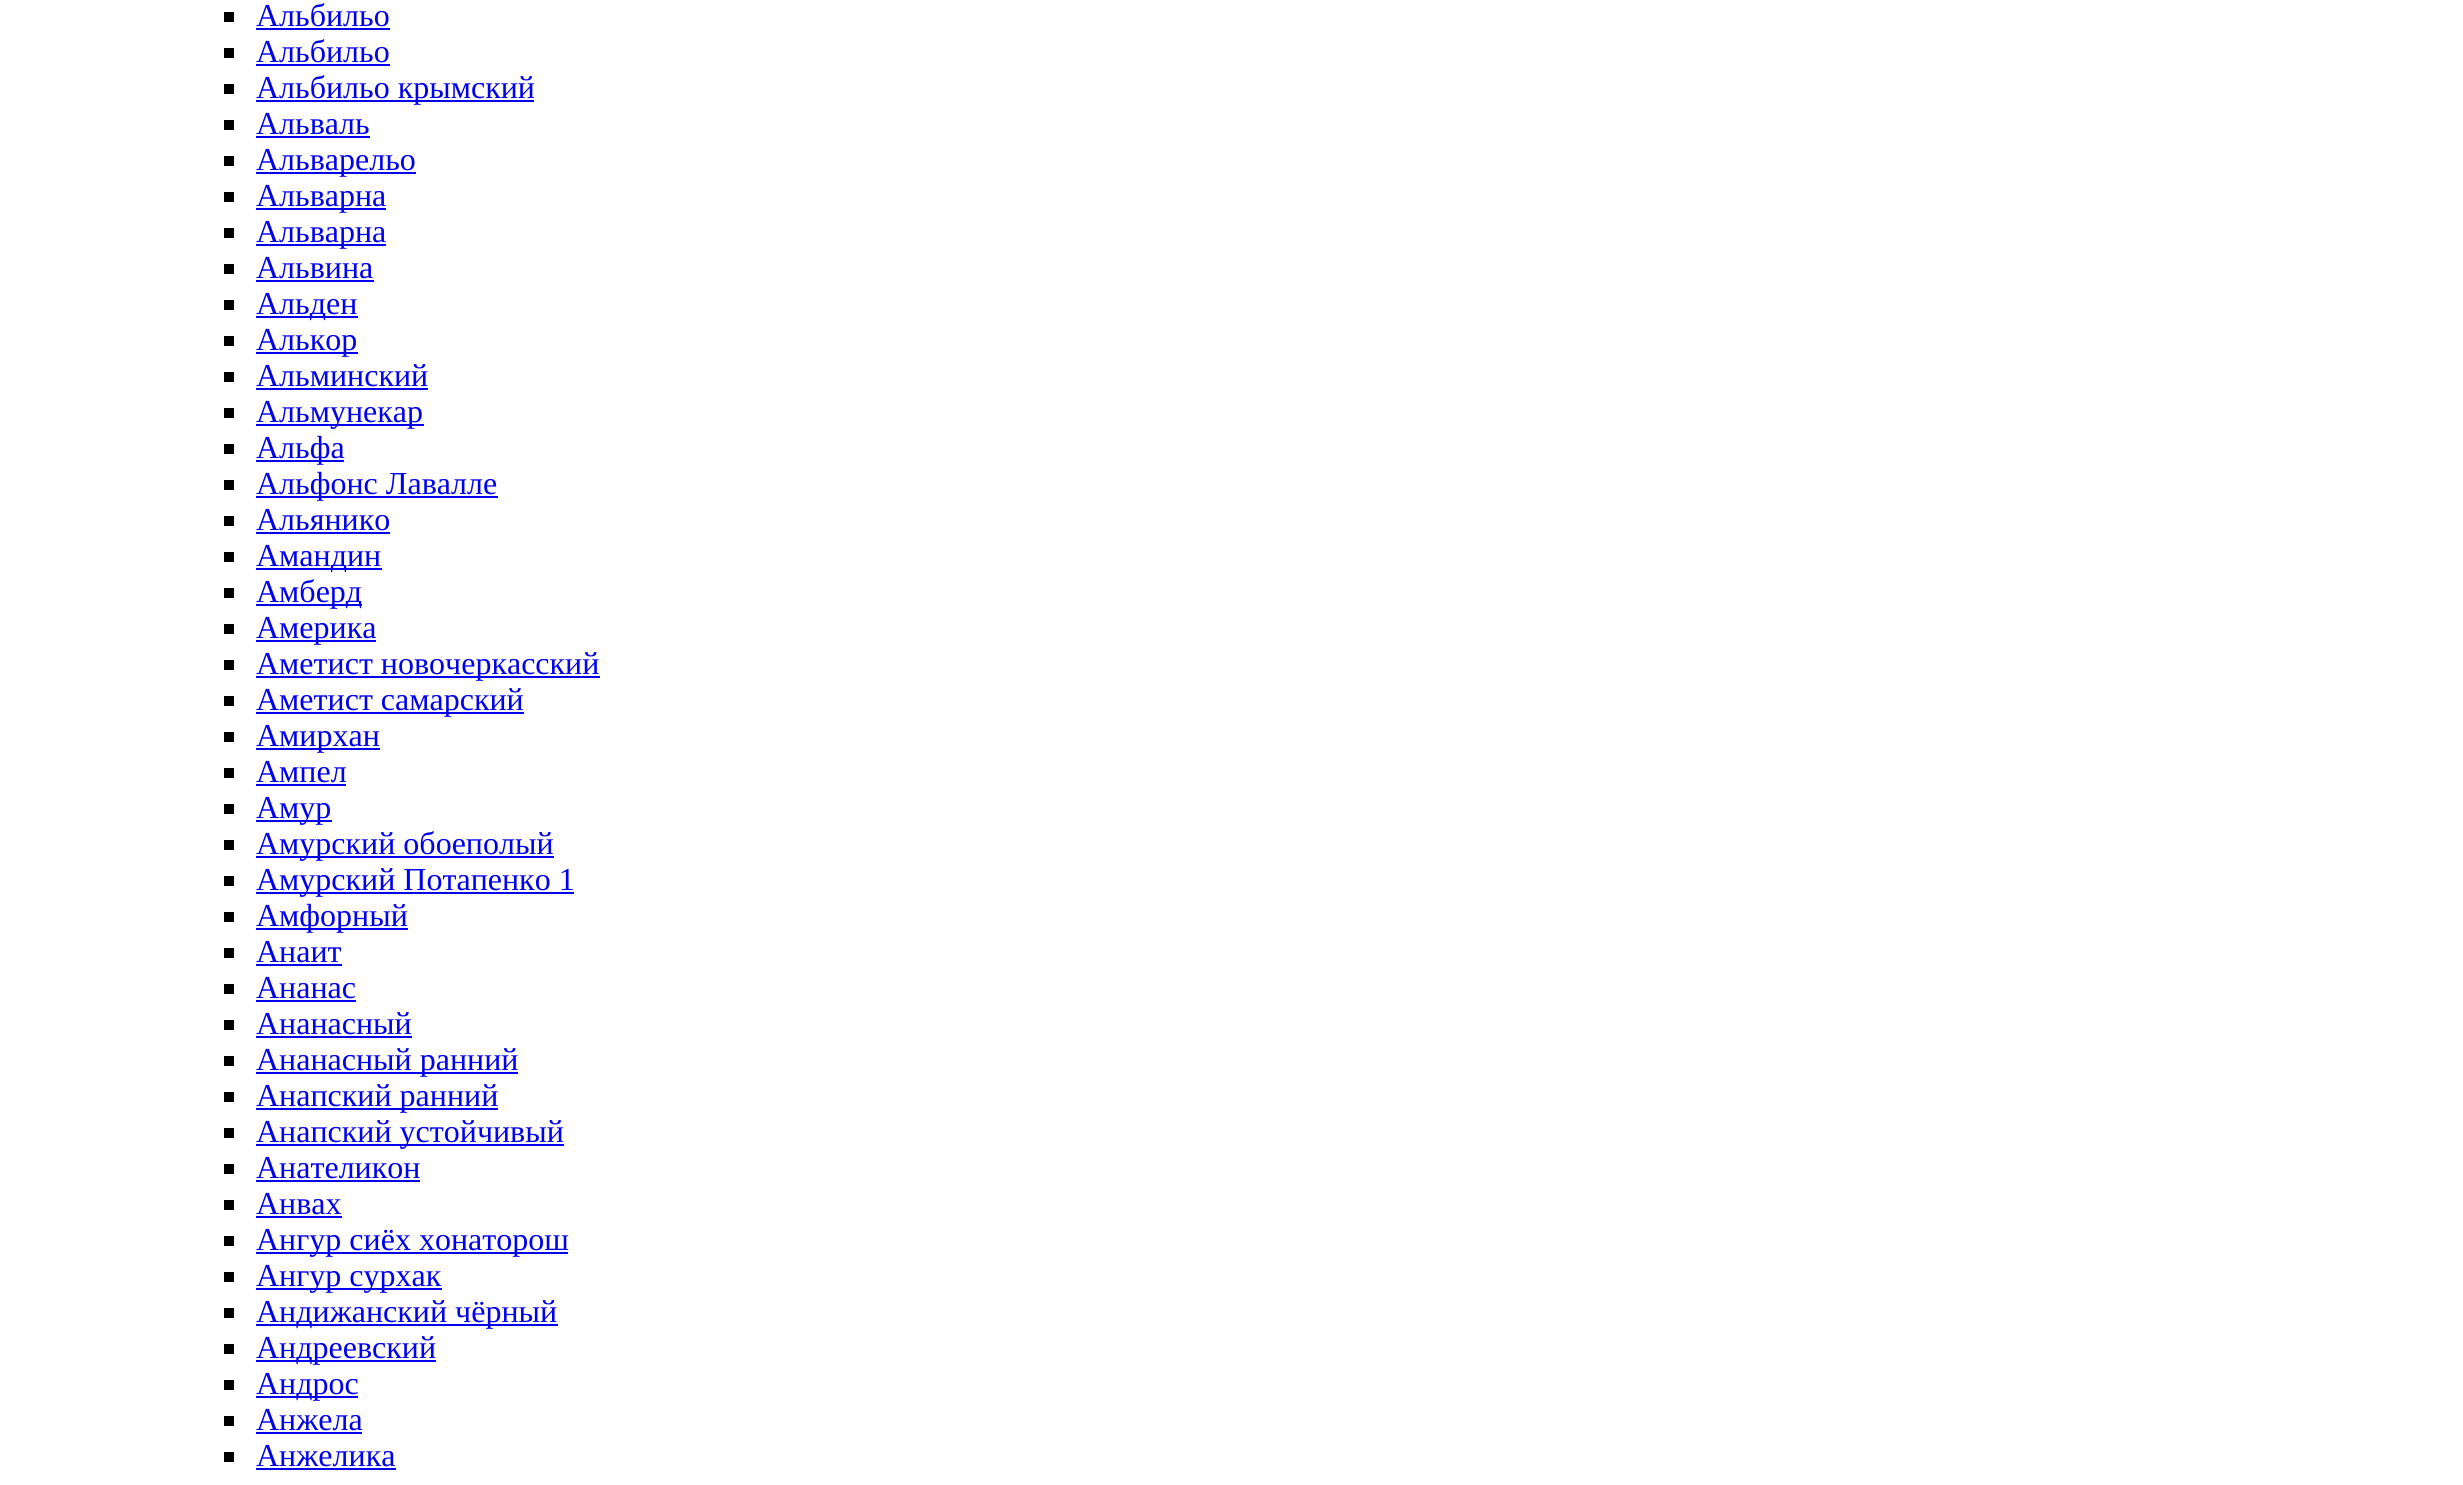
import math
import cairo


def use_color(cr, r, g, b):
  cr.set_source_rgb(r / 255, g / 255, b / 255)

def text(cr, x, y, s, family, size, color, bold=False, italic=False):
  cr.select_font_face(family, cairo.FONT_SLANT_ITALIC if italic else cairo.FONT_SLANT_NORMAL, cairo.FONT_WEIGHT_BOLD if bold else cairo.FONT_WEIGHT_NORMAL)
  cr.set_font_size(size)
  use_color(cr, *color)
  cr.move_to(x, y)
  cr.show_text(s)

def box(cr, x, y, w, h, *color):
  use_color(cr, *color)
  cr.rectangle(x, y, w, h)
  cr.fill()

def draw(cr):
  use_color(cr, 255, 255, 255)
  cr.paint()
  box(cr, 224, 12, 10, 10, 0, 0, 0)
  box(cr, 256, 28, 134, 2, 0, 0, 238)
  box(cr, 224, 48, 10, 10, 0, 0, 0)
  box(cr, 256, 64, 134, 2, 0, 0, 238)
  box(cr, 224, 84, 10, 10, 0, 0, 0)
  box(cr, 256, 100, 278, 2, 0, 0, 238)
  box(cr, 224, 120, 10, 10, 0, 0, 0)
  box(cr, 256, 136, 114, 2, 0, 0, 238)
  box(cr, 224, 156, 10, 10, 0, 0, 0)
  box(cr, 256, 172, 160, 2, 0, 0, 238)
  box(cr, 224, 192, 10, 10, 0, 0, 0)
  box(cr, 256, 208, 130, 2, 0, 0, 238)
  box(cr, 224, 228, 10, 10, 0, 0, 0)
  box(cr, 256, 244, 130, 2, 0, 0, 238)
  box(cr, 224, 264, 10, 10, 0, 0, 0)
  box(cr, 256, 280, 118, 2, 0, 0, 238)
  box(cr, 224, 300, 10, 10, 0, 0, 0)
  box(cr, 256, 316, 102, 2, 0, 0, 238)
  box(cr, 224, 336, 10, 10, 0, 0, 0)
  box(cr, 256, 352, 102, 2, 0, 0, 238)
  box(cr, 224, 372, 10, 10, 0, 0, 0)
  box(cr, 256, 388, 172, 2, 0, 0, 238)
  box(cr, 224, 408, 10, 10, 0, 0, 0)
  box(cr, 256, 424, 168, 2, 0, 0, 238)
  box(cr, 224, 444, 10, 10, 0, 0, 0)
  box(cr, 256, 460, 88, 2, 0, 0, 238)
  box(cr, 224, 480, 10, 10, 0, 0, 0)
  box(cr, 256, 496, 242, 2, 0, 0, 238)
  box(cr, 224, 516, 10, 10, 0, 0, 0)
  box(cr, 256, 532, 134, 2, 0, 0, 238)
  box(cr, 224, 552, 10, 10, 0, 0, 0)
  box(cr, 256, 568, 126, 2, 0, 0, 238)
  box(cr, 224, 588, 10, 10, 0, 0, 0)
  box(cr, 256, 604, 106, 2, 0, 0, 238)
  box(cr, 224, 624, 10, 10, 0, 0, 0)
  box(cr, 256, 640, 120, 2, 0, 0, 238)
  box(cr, 224, 660, 10, 10, 0, 0, 0)
  box(cr, 256, 676, 344, 2, 0, 0, 238)
  box(cr, 224, 696, 10, 10, 0, 0, 0)
  box(cr, 256, 712, 268, 2, 0, 0, 238)
  box(cr, 224, 732, 10, 10, 0, 0, 0)
  box(cr, 256, 748, 124, 2, 0, 0, 238)
  box(cr, 224, 768, 10, 10, 0, 0, 0)
  box(cr, 256, 784, 90, 2, 0, 0, 238)
  box(cr, 224, 804, 10, 10, 0, 0, 0)
  box(cr, 256, 820, 76, 2, 0, 0, 238)
  box(cr, 224, 840, 10, 10, 0, 0, 0)
  box(cr, 256, 856, 298, 2, 0, 0, 238)
  box(cr, 224, 876, 10, 10, 0, 0, 0)
  box(cr, 256, 892, 318, 2, 0, 0, 238)
  box(cr, 224, 912, 10, 10, 0, 0, 0)
  box(cr, 256, 928, 152, 2, 0, 0, 238)
  box(cr, 224, 948, 10, 10, 0, 0, 0)
  box(cr, 256, 964, 86, 2, 0, 0, 238)
  box(cr, 224, 984, 10, 10, 0, 0, 0)
  box(cr, 256, 1000, 100, 2, 0, 0, 238)
  box(cr, 224, 1020, 10, 10, 0, 0, 0)
  box(cr, 256, 1036, 156, 2, 0, 0, 238)
  box(cr, 224, 1056, 10, 10, 0, 0, 0)
  box(cr, 256, 1072, 262, 2, 0, 0, 238)
  box(cr, 224, 1092, 10, 10, 0, 0, 0)
  box(cr, 256, 1108, 242, 2, 0, 0, 238)
  box(cr, 224, 1128, 10, 10, 0, 0, 0)
  box(cr, 256, 1144, 308, 2, 0, 0, 238)
  box(cr, 224, 1164, 10, 10, 0, 0, 0)
  box(cr, 256, 1180, 164, 2, 0, 0, 238)
  box(cr, 224, 1200, 10, 10, 0, 0, 0)
  box(cr, 256, 1216, 86, 2, 0, 0, 238)
  box(cr, 224, 1236, 10, 10, 0, 0, 0)
  box(cr, 256, 1252, 312, 2, 0, 0, 238)
  box(cr, 224, 1272, 10, 10, 0, 0, 0)
  box(cr, 256, 1288, 186, 2, 0, 0, 238)
  box(cr, 224, 1308, 10, 10, 0, 0, 0)
  box(cr, 256, 1324, 302, 2, 0, 0, 238)
  box(cr, 224, 1344, 10, 10, 0, 0, 0)
  box(cr, 256, 1360, 180, 2, 0, 0, 238)
  box(cr, 224, 1380, 10, 10, 0, 0, 0)
  box(cr, 256, 1396, 102, 2, 0, 0, 238)
  box(cr, 224, 1416, 10, 10, 0, 0, 0)
  box(cr, 256, 1432, 106, 2, 0, 0, 238)
  box(cr, 224, 1452, 10, 10, 0, 0, 0)
  box(cr, 256, 1468, 140, 2, 0, 0, 238)
  text(cr, 256, 26, "Альбильо", "Liberation Serif", 32, (0, 0, 238))
  text(cr, 256, 62, "Альбильо", "Liberation Serif", 32, (0, 0, 238))
  text(cr, 256, 98, "Альбильо крымский", "Liberation Serif", 32, (0, 0, 238))
  text(cr, 256, 134, "Альваль", "Liberation Serif", 32, (0, 0, 238))
  text(cr, 256, 170, "Альварельо", "Liberation Serif", 32, (0, 0, 238))
  text(cr, 256, 206, "Альварна", "Liberation Serif", 32, (0, 0, 238))
  text(cr, 256, 242, "Альварна", "Liberation Serif", 32, (0, 0, 238))
  text(cr, 256, 278, "Альвина", "Liberation Serif", 32, (0, 0, 238))
  text(cr, 256, 314, "Альден", "Liberation Serif", 32, (0, 0, 238))
  text(cr, 256, 350, "Алькор", "Liberation Serif", 32, (0, 0, 238))
  text(cr, 256, 386, "Альминский", "Liberation Serif", 32, (0, 0, 238))
  text(cr, 256, 422, "Альмунекар", "Liberation Serif", 32, (0, 0, 238))
  text(cr, 256, 458, "Альфа", "Liberation Serif", 32, (0, 0, 238))
  text(cr, 256, 494, "Альфонс Лавалле", "Liberation Serif", 32, (0, 0, 238))
  text(cr, 256, 530, "Альянико", "Liberation Serif", 32, (0, 0, 238))
  text(cr, 256, 566, "Амандин", "Liberation Serif", 32, (0, 0, 238))
  text(cr, 256, 602, "Амберд", "Liberation Serif", 32, (0, 0, 238))
  text(cr, 256, 638, "Америка", "Liberation Serif", 32, (0, 0, 238))
  text(cr, 256, 674, "Аметист новочеркасский", "Liberation Serif", 32, (0, 0, 238))
  text(cr, 256, 710, "Аметист самарский", "Liberation Serif", 32, (0, 0, 238))
  text(cr, 256, 746, "Амирхан", "Liberation Serif", 32, (0, 0, 238))
  text(cr, 256, 782, "Ампел", "Liberation Serif", 32, (0, 0, 238))
  text(cr, 256, 818, "Амур", "Liberation Serif", 32, (0, 0, 238))
  text(cr, 256, 854, "Амурский обоеполый", "Liberation Serif", 32, (0, 0, 238))
  text(cr, 256, 890, "Амурский Потапенко 1", "Liberation Serif", 32, (0, 0, 238))
  text(cr, 256, 926, "Амфорный", "Liberation Serif", 32, (0, 0, 238))
  text(cr, 256, 962, "Анаит", "Liberation Serif", 32, (0, 0, 238))
  text(cr, 256, 998, "Ананас", "Liberation Serif", 32, (0, 0, 238))
  text(cr, 256, 1034, "Ананасный", "Liberation Serif", 32, (0, 0, 238))
  text(cr, 256, 1070, "Ананасный ранний", "Liberation Serif", 32, (0, 0, 238))
  text(cr, 256, 1106, "Анапский ранний", "Liberation Serif", 32, (0, 0, 238))
  text(cr, 256, 1142, "Анапский устойчивый", "Liberation Serif", 32, (0, 0, 238))
  text(cr, 256, 1178, "Анателикон", "Liberation Serif", 32, (0, 0, 238))
  text(cr, 256, 1214, "Анвах", "Liberation Serif", 32, (0, 0, 238))
  text(cr, 256, 1250, "Ангур сиёх хонаторош", "Liberation Serif", 32, (0, 0, 238))
  text(cr, 256, 1286, "Ангур сурхак", "Liberation Serif", 32, (0, 0, 238))
  text(cr, 256, 1322, "Андижанский чёрный", "Liberation Serif", 32, (0, 0, 238))
  text(cr, 256, 1358, "Андреевский", "Liberation Serif", 32, (0, 0, 238))
  text(cr, 256, 1394, "Андрос", "Liberation Serif", 32, (0, 0, 238))
  text(cr, 256, 1430, "Анжела", "Liberation Serif", 32, (0, 0, 238))
  text(cr, 256, 1466, "Анжелика", "Liberation Serif", 32, (0, 0, 238))


surface = cairo.ImageSurface(cairo.FORMAT_RGB24, 2463, 1485)
cr = cairo.Context(surface)
options = cairo.FontOptions()
options.set_hint_metrics(cairo.HINT_METRICS_OFF)
options.set_hint_style(cairo.HINT_STYLE_NONE)
cr.set_font_options(options)
cr.set_miter_limit(4)
draw(cr)
surface.write_to_png("out.png")
